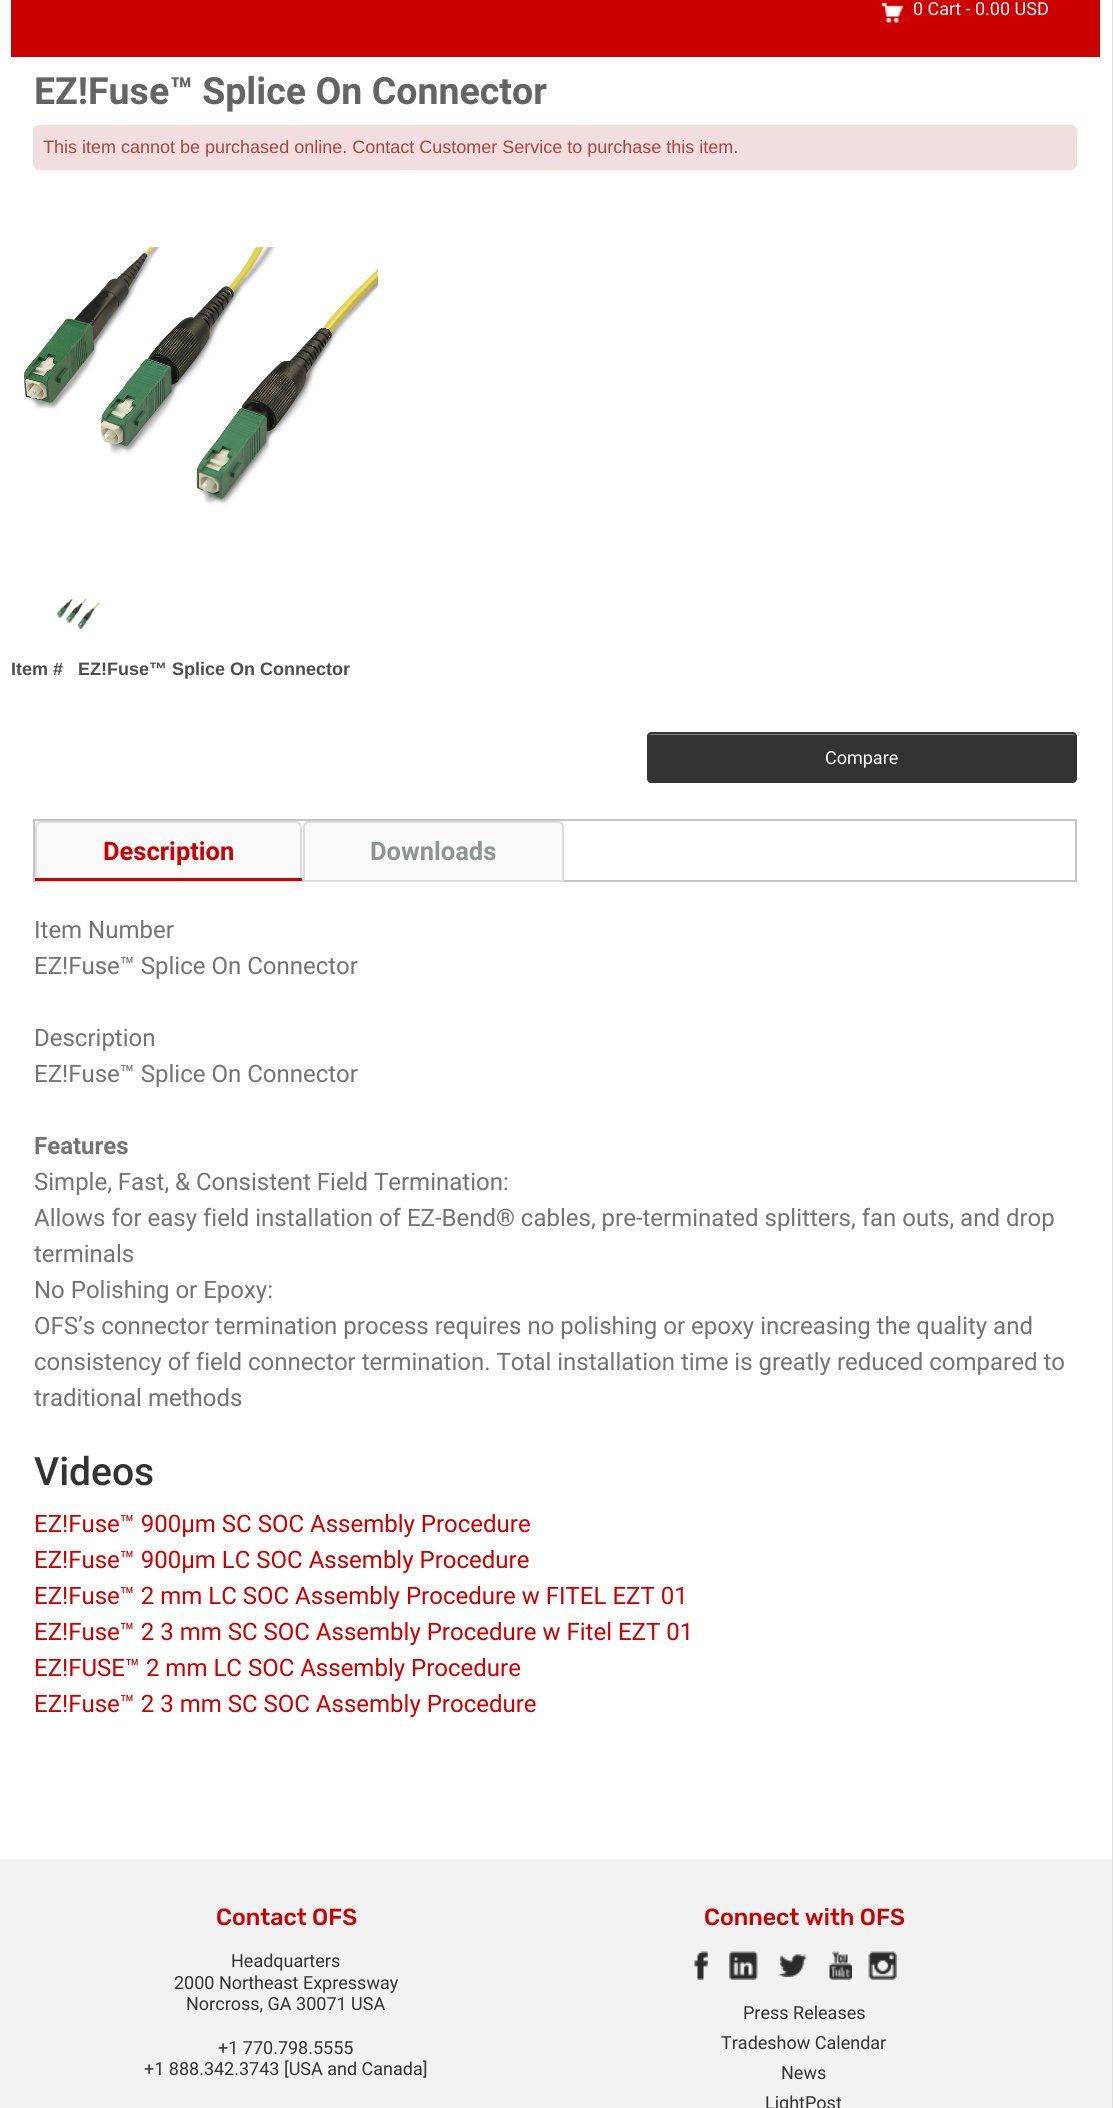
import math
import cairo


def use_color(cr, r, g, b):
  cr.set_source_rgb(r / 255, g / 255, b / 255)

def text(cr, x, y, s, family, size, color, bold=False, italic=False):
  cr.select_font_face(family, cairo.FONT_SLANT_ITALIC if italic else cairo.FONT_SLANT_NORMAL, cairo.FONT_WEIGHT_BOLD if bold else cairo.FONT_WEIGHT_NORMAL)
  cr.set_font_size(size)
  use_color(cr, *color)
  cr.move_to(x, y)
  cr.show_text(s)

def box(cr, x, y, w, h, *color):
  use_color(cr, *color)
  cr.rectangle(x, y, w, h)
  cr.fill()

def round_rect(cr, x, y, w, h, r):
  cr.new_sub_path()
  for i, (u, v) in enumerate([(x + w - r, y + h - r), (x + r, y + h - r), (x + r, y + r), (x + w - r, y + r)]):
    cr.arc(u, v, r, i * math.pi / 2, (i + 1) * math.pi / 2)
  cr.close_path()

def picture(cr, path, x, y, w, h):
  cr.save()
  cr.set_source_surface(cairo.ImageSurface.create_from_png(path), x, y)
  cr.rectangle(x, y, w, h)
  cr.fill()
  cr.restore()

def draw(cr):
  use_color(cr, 220, 220, 220)
  cr.paint()
  box(cr, 0, 0, 1112, 1859, 255, 255, 255)
  box(cr, 11, 0, 1089, 57, 204, 0, 0)
  picture(cr, "img_01.png", 881, 2, 23, 21)
  use_color(cr, 242, 222, 222)
  round_rect(cr, 33, 125, 1044, 45, 6)
  cr.fill()
  picture(cr, "img_02.png", 23, 247, 355, 258)
  picture(cr, "img_03.png", 56, 597, 44, 33)
  use_color(cr, 51, 51, 51)
  round_rect(cr, 647, 732, 430, 51, 5)
  cr.fill()
  use_color(cr, 133, 133, 133)
  cr.new_path()
  cr.move_to(651, 735)
  cr.line_to(1072, 735)
  cr.curve_to(1074, 735, 1076, 736, 1076, 738)
  cr.curve_to(1076, 736, 1075, 734, 1073, 734)
  cr.line_to(651, 734)
  cr.curve_to(649, 734, 648, 736, 648, 738)
  cr.curve_to(648, 736, 649, 735, 651, 735)
  cr.close_path()
  cr.fill()
  round_rect(cr, 648, 733, 428, 49, 4)
  use_color(cr, 51, 51, 51)
  cr.stroke()
  cr.rectangle(34, 820, 1042, 61)
  use_color(cr, 196, 196, 196)
  cr.stroke()
  use_color(cr, 250, 250, 250)
  cr.new_path()
  cr.move_to(41, 822)
  cr.line_to(296, 822)
  cr.curve_to(299, 822, 301, 824, 301, 827)
  cr.line_to(301, 881)
  cr.line_to(36, 881)
  cr.line_to(36, 827)
  cr.curve_to(36, 824, 38, 822, 41, 822)
  cr.close_path()
  cr.fill_preserve()
  use_color(cr, 220, 220, 220)
  cr.stroke()
  box(cr, 35, 878, 267, 3, 204, 0, 0)
  use_color(cr, 250, 250, 250)
  cr.new_path()
  cr.move_to(309, 822)
  cr.line_to(558, 822)
  cr.curve_to(561, 822, 563, 824, 563, 827)
  cr.line_to(563, 881)
  cr.line_to(304, 881)
  cr.line_to(304, 827)
  cr.curve_to(304, 824, 306, 822, 309, 822)
  cr.close_path()
  cr.fill_preserve()
  use_color(cr, 220, 220, 220)
  cr.stroke()
  box(cr, 0, 1859, 1112, 249, 242, 242, 242)
  picture(cr, "img_04.png", 694, 1951, 14, 29)
  picture(cr, "img_05.png", 729, 1951, 29, 29)
  picture(cr, "img_06.png", 778, 1954, 29, 23)
  picture(cr, "img_07.png", 829, 1951, 23, 29)
  picture(cr, "img_08.png", 868, 1951, 29, 29)
  text(cr, 913, 15, "0 Cart - 0.00 USD", "Roboto", 18, (255, 255, 255))
  text(cr, 34, 104, "EZ!Fuse™ Splice On Connector", "Roboto", 37.5, (100, 100, 100), bold=True)
  text(cr, 43, 153, "This item cannot be purchased online. Contact Customer Service to purchase this item.", "Liberation Sans", 18, (169, 68, 66))
  text(cr, 11, 675, "Item #", "Liberation Sans", 18, (76, 78, 77), bold=True)
  text(cr, 78, 675, "EZ!Fuse™ Splice On Connector", "Liberation Sans", 18, (76, 78, 77), bold=True)
  text(cr, 825, 764, "Compare", "Roboto", 18, (255, 255, 255))
  text(cr, 103, 860, "Description", "Roboto", 25.5, (204, 0, 0), bold=True)
  text(cr, 370, 860, "Downloads", "Roboto", 25.5, (143, 149, 146), bold=True)
  text(cr, 34, 938, "Item Number", "Roboto", 24, (115, 115, 115))
  text(cr, 34, 974, "EZ!Fuse™ Splice On Connector", "Roboto", 24, (115, 115, 115))
  text(cr, 34, 1046, "Description", "Roboto", 24, (115, 115, 115))
  text(cr, 34, 1082, "EZ!Fuse™ Splice On Connector", "Roboto", 24, (115, 115, 115))
  text(cr, 34, 1154, "Features", "Roboto", 24, (115, 115, 115), bold=True)
  text(cr, 34, 1190, "Simple, Fast, & Consistent Field Termination:", "Roboto", 24, (115, 115, 115))
  text(cr, 34, 1226, "Allows for easy field installation of EZ-Bend® cables, pre-terminated splitters, fan outs, and drop", "Roboto", 24, (115, 115, 115))
  text(cr, 34, 1262, "terminals", "Roboto", 24, (115, 115, 115))
  text(cr, 34, 1298, "No Polishing or Epoxy:", "Roboto", 24, (115, 115, 115))
  text(cr, 34, 1334, "OFS’s connector termination process requires no polishing or epoxy increasing the quality and", "Roboto", 24, (115, 115, 115))
  text(cr, 34, 1370, "consistency of field connector termination. Total installation time is greatly reduced compared to", "Roboto", 24, (115, 115, 115))
  text(cr, 34, 1406, "traditional methods", "Roboto", 24, (115, 115, 115))
  text(cr, 34, 1485, "Videos", "Roboto Medium", 39, (51, 51, 51))
  text(cr, 34, 1532, "EZ!Fuse™ 900µm SC SOC Assembly Procedure", "Roboto", 24, (204, 0, 0))
  text(cr, 34, 1568, "EZ!Fuse™ 900µm LC SOC Assembly Procedure", "Roboto", 24, (204, 0, 0))
  text(cr, 34, 1604, "EZ!Fuse™ 2 mm LC SOC Assembly Procedure w FITEL EZT 01", "Roboto", 24, (204, 0, 0))
  text(cr, 34, 1640, "EZ!Fuse™ 2 3 mm SC SOC Assembly Procedure w Fitel EZT 01", "Roboto", 24, (204, 0, 0))
  text(cr, 34, 1676, "EZ!FUSE™ 2 mm LC SOC Assembly Procedure", "Roboto", 24, (204, 0, 0))
  text(cr, 34, 1712, "EZ!Fuse™ 2 3 mm SC SOC Assembly Procedure", "Roboto", 24, (204, 0, 0))
  text(cr, 216, 1925, "Contact OFS", "Rubik Medium", 23.25, (204, 0, 0))
  text(cr, 231, 1967, "Headquarters", "Roboto", 18, (51, 51, 51))
  text(cr, 174, 1989, "2000 Northeast Expressway", "Roboto", 18, (51, 51, 51))
  text(cr, 186, 2010, "Norcross, GA 30071 USA", "Roboto", 18, (51, 51, 51))
  text(cr, 218, 2054, "+1 770.798.5555", "Roboto", 18, (51, 51, 51))
  text(cr, 144, 2075, "+1 888.342.3743 [USA and Canada]", "Roboto", 18, (51, 51, 51))
  text(cr, 704, 1925, "Connect with OFS", "Rubik Medium", 23.25, (204, 0, 0))
  text(cr, 743, 2019, "Press Releases", "Roboto", 18, (51, 51, 51))
  text(cr, 721, 2049, "Tradeshow Calendar", "Roboto", 18, (51, 51, 51))
  text(cr, 781, 2079, "News", "Roboto", 18, (51, 51, 51))
  text(cr, 765, 2109, "LightPost", "Roboto", 18, (51, 51, 51))


surface = cairo.ImageSurface(cairo.FORMAT_RGB24, 1113, 2108)
cr = cairo.Context(surface)
options = cairo.FontOptions()
options.set_hint_metrics(cairo.HINT_METRICS_OFF)
options.set_hint_style(cairo.HINT_STYLE_NONE)
cr.set_font_options(options)
cr.set_miter_limit(4)
draw(cr)
surface.write_to_png("out.png")
